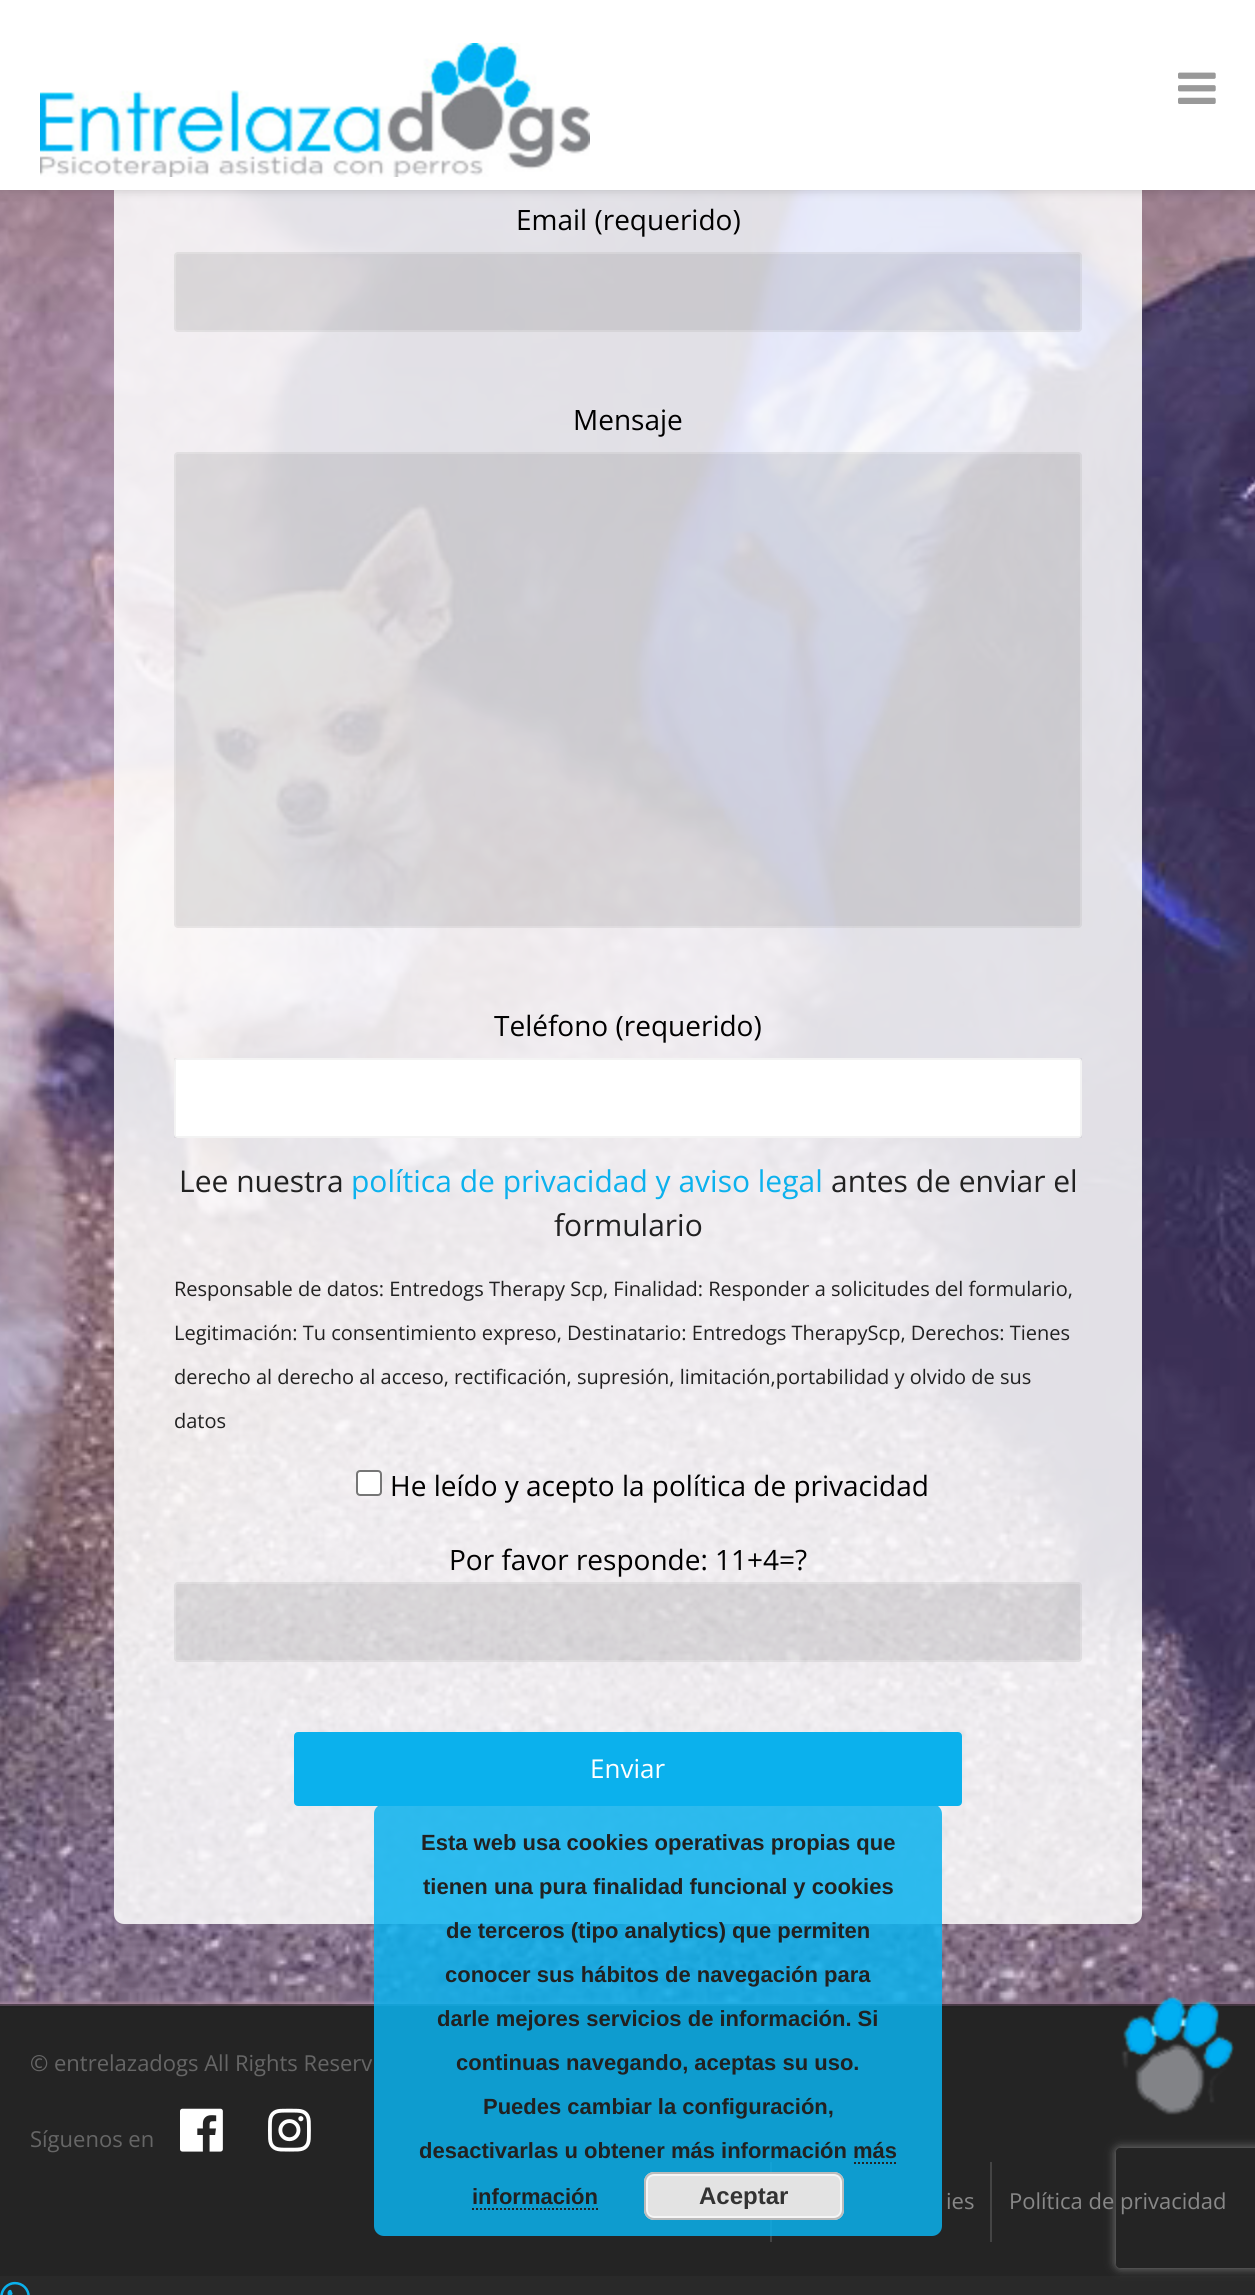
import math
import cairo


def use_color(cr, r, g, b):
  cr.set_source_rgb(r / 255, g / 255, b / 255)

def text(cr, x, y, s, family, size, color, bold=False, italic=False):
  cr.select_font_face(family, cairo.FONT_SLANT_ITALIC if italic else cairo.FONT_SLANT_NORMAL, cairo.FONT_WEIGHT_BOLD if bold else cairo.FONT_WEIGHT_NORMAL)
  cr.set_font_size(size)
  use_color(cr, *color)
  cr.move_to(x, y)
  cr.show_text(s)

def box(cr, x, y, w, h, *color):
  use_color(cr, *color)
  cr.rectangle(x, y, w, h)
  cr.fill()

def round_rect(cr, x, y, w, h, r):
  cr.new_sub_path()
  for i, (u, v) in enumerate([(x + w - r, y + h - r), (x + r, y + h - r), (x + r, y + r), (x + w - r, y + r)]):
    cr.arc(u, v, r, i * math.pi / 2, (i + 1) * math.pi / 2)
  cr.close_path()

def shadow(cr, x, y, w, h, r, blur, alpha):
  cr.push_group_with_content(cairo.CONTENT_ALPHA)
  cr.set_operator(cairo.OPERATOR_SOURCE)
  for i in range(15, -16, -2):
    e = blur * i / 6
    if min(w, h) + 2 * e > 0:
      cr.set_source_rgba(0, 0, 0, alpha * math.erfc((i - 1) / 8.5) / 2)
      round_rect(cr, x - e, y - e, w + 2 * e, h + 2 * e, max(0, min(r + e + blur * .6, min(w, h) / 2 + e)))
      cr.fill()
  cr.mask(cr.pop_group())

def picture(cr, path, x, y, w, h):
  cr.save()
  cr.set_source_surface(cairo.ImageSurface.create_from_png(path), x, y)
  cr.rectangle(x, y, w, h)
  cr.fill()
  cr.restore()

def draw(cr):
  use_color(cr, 41, 41, 41)
  cr.paint()
  picture(cr, "img_03.png", 0, 190, 1255, 1816)
  cr.set_source_rgba(1, 1, 1, 0.85)
  round_rect(cr, 114, -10, 1028, 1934, 10)
  cr.fill()
  use_color(cr, 0, 0, 0)
  shadow(cr, 0, 0, 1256, 190, 0, 5, 0.19)
  box(cr, 0, 0, 1255, 190, 255, 255, 255)
  picture(cr, "img_01.png", 40, 43, 550, 134)
  picture(cr, "img_02.png", 1178, 72, 38, 32)
  cr.set_source_rgba(0, 0, 0, 0.54)
  cr.rectangle(0, 2004, 1255, 2)
  cr.fill()
  cr.set_source_rgba(0, 0, 0, 0.1)
  round_rect(cr, 174, 252, 908, 80, 4)
  cr.fill()
  round_rect(cr, 175, 253, 906, 78, 3)
  cr.set_source_rgba(1, 1, 1, 0.19)
  cr.stroke()
  cr.set_source_rgba(0, 0, 0, 0.1)
  round_rect(cr, 174, 452, 908, 476, 4)
  cr.fill()
  round_rect(cr, 175, 453, 906, 474, 3)
  cr.set_source_rgba(1, 1, 1, 0.19)
  cr.stroke()
  use_color(cr, 255, 255, 255)
  round_rect(cr, 174, 1058, 908, 80, 4)
  cr.fill()
  cr.rectangle(175, 1059, 906, 78)
  cr.set_source_rgba(0, 0, 0, 0.05)
  cr.stroke()
  use_color(cr, 255, 255, 255)
  round_rect(cr, 357, 1471, 24, 24, 3)
  cr.fill_preserve()
  use_color(cr, 118, 118, 118)
  cr.stroke()
  cr.set_source_rgba(0, 0, 0, 0.1)
  round_rect(cr, 174, 1582, 908, 80, 4)
  cr.fill()
  round_rect(cr, 175, 1583, 906, 78, 3)
  cr.set_source_rgba(1, 1, 1, 0.19)
  cr.stroke()
  use_color(cr, 11, 177, 237)
  round_rect(cr, 295, 1733, 666, 72, 3)
  cr.fill_preserve()
  cr.stroke()
  box(cr, 0, 2008, 1255, 268, 36, 36, 36)
  box(cr, 0, 2006, 1255, 2, 34, 34, 34)
  picture(cr, "img_04.png", 180, 2108, 43, 44)
  picture(cr, "img_05.png", 268, 2108, 43, 44)
  box(cr, 770, 2162, 2, 80, 68, 68, 68)
  box(cr, 990, 2162, 2, 80, 68, 68, 68)
  cr.set_source_rgba(0.043, 0.694, 0.929, 0.85)
  round_rect(cr, 374, 1804, 568, 432, 10)
  cr.fill()
  cr.new_path()
  cr.move_to(854, 2163)
  cr.line_to(898, 2163)
  use_color(cr, 35, 35, 35)
  cr.set_dash([2, 2])
  cr.stroke()
  cr.new_path()
  cr.move_to(472, 2209)
  cr.line_to(598, 2209)
  cr.stroke()
  use_color(cr, 227, 227, 227)
  round_rect(cr, 644, 2172, 200, 48, 10)
  cr.fill()
  round_rect(cr, 647, 2175, 194, 42, 7)
  use_color(cr, 246, 246, 246)
  cr.set_dash([])
  cr.stroke()
  round_rect(cr, 645, 2173, 198, 46, 9)
  use_color(cr, 187, 187, 187)
  cr.stroke()
  picture(cr, "img_06.png", 1121, 1996, 113, 119)
  cr.save()
  cr.set_fill_rule(cairo.FILL_RULE_EVEN_ODD)
  cr.new_path()
  cr.move_to(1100, 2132)
  cr.line_to(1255, 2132)
  cr.line_to(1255, 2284)
  cr.line_to(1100, 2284)
  cr.close_path()
  cr.move_to(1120, 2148)
  cr.line_to(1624, 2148)
  cr.curve_to(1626, 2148, 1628, 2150, 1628, 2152)
  cr.line_to(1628, 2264)
  cr.curve_to(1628, 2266, 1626, 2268, 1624, 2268)
  cr.line_to(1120, 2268)
  cr.curve_to(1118, 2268, 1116, 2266, 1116, 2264)
  cr.line_to(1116, 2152)
  cr.curve_to(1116, 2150, 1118, 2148, 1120, 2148)
  cr.close_path()
  cr.clip()
  use_color(cr, 128, 128, 128)
  shadow(cr, 1116, 2148, 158, 120, 4, 5, 1)
  cr.restore()
  picture(cr, "img_07.png", 0, 2281, 30, 14)
  text(cr, 516, 230, "Email (requerido)", "Open Sans", 28, (0, 0, 0))
  text(cr, 573, 430, "Mensaje", "Open Sans", 28, (0, 0, 0))
  text(cr, 494, 1036, "Teléfono (requerido)", "Open Sans", 28, (0, 0, 0))
  text(cr, 179, 1192, "Lee nuestra", "Open Sans", 30, (33, 33, 33))
  text(cr, 351, 1192, "política de privacidad y aviso legal", "Open Sans", 30, (11, 177, 237))
  text(cr, 831, 1192, "antes de enviar el", "Open Sans", 30, (33, 33, 33))
  text(cr, 554, 1236, "formulario", "Open Sans", 30, (33, 33, 33))
  text(cr, 174, 1296, "Responsable de datos: Entredogs Therapy Scp, Finalidad: Responder a solicitudes del formulario,", "Open Sans", 20, (33, 33, 33))
  text(cr, 174, 1340, "Legitimación: Tu consentimiento expreso, Destinatario: Entredogs TherapyScp, Derechos: Tienes", "Open Sans", 20, (33, 33, 33))
  text(cr, 174, 1384, "derecho al derecho al acceso, rectificación, supresión, limitación,portabilidad y olvido de sus", "Open Sans", 20, (33, 33, 33))
  text(cr, 174, 1428, "datos", "Open Sans", 20, (33, 33, 33))
  text(cr, 390, 1496, "He leído y acepto la política de privacidad", "Open Sans", 28, (0, 0, 0))
  text(cr, 449, 1570, "Por favor responde: 11+4=?", "Open Sans", 28, (0, 0, 0))
  text(cr, 590, 1778, "Enviar", "Open Sans", 26, (255, 255, 255))
  text(cr, 30, 2071, "© entrelazadogs All Rights Reserv", "Open Sans", 22, (102, 102, 102))
  text(cr, 30, 2147, "Síguenos en", "Open Sans", 22, (102, 102, 102))
  text(cr, 946, 2209, "ies", "Open Sans", 22, (136, 136, 136))
  text(cr, 1009, 2209, "Política de privacidad", "Open Sans", 22, (136, 136, 136))
  text(cr, 421, 1850, "Esta web usa cookies operativas propias que", "Liberation Sans", 22, (33, 33, 33), bold=True)
  text(cr, 423, 1894, "tienen una pura finalidad funcional y cookies", "Liberation Sans", 22, (33, 33, 33), bold=True)
  text(cr, 446, 1938, "de terceros (tipo analytics) que permiten", "Liberation Sans", 22, (33, 33, 33), bold=True)
  text(cr, 445, 1982, "conocer sus hábitos de navegación para", "Liberation Sans", 22, (33, 33, 33), bold=True)
  text(cr, 437, 2026, "darle mejores servicios de información. Si", "Liberation Sans", 22, (33, 33, 33), bold=True)
  text(cr, 456, 2070, "continuas navegando, aceptas su uso.", "Liberation Sans", 22, (33, 33, 33), bold=True)
  text(cr, 483, 2114, "Puedes cambiar la configuración,", "Liberation Sans", 22, (33, 33, 33), bold=True)
  text(cr, 419, 2158, "desactivarlas u obtener más información más", "Liberation Sans", 22, (33, 33, 33), bold=True)
  text(cr, 472, 2204, "información", "Liberation Sans", 22, (33, 33, 33), bold=True)
  text(cr, 699, 2204, "Aceptar", "Liberation Sans", 24, (51, 51, 51), bold=True)


surface = cairo.ImageSurface(cairo.FORMAT_RGB24, 1255, 2295)
cr = cairo.Context(surface)
options = cairo.FontOptions()
options.set_hint_metrics(cairo.HINT_METRICS_OFF)
options.set_hint_style(cairo.HINT_STYLE_NONE)
cr.set_font_options(options)
cr.set_miter_limit(4)
draw(cr)
surface.write_to_png("out.png")
